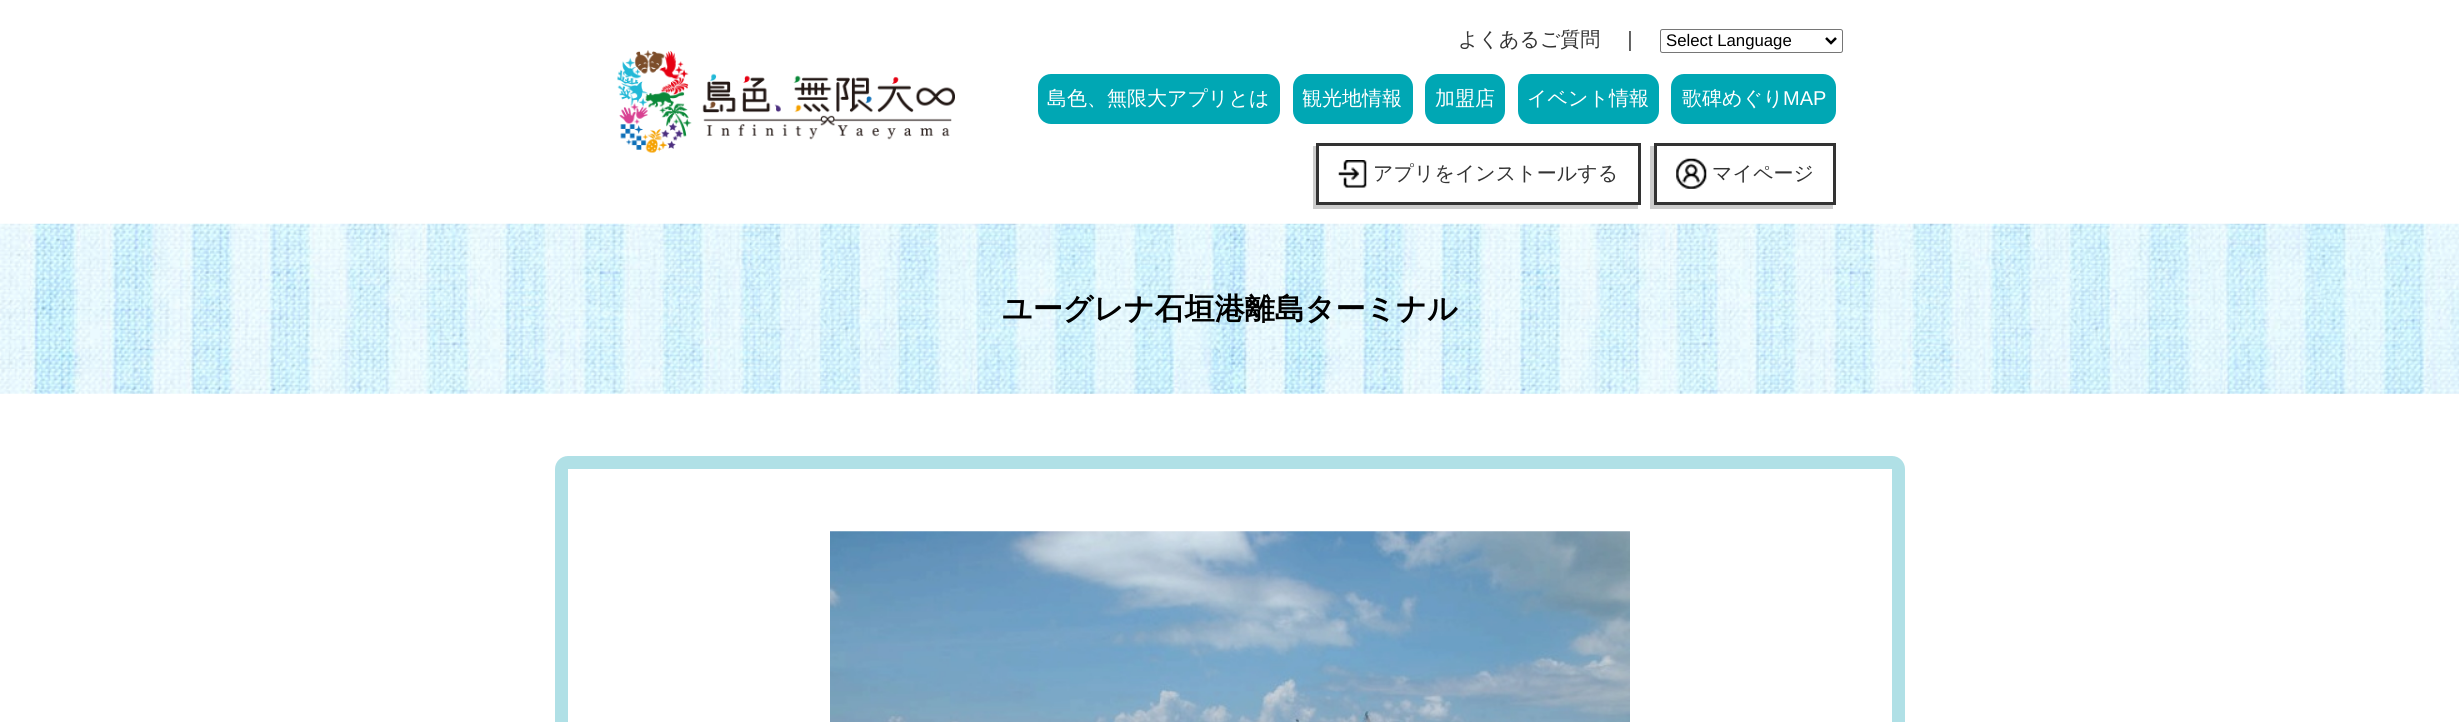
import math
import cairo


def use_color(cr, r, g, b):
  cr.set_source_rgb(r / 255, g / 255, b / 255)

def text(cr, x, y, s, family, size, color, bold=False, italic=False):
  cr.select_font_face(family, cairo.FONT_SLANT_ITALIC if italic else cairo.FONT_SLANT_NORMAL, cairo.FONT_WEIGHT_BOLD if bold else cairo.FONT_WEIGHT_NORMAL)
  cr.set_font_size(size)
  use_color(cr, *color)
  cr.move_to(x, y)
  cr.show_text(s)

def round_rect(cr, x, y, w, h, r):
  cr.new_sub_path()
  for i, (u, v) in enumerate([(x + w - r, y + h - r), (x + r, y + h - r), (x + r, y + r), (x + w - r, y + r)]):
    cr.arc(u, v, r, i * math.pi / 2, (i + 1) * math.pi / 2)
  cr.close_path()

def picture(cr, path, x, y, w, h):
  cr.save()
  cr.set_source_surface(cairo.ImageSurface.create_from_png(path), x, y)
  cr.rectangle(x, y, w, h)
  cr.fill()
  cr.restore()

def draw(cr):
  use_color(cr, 255, 255, 255)
  cr.paint()
  picture(cr, "img_01.png", 617, 50, 338, 103)
  round_rect(cr, 1660.5, 29.5, 182, 23, 2)
  use_color(cr, 118, 118, 118)
  cr.set_line_width(1)
  cr.stroke()
  cr.new_path()
  cr.move_to(1826, 38)
  cr.line_to(1831, 43)
  cr.line_to(1836, 38)
  use_color(cr, 0, 0, 0)
  cr.set_line_width(2.5)
  cr.stroke()
  use_color(cr, 0, 167, 180)
  round_rect(cr, 1038, 74, 242, 50, 13)
  cr.fill()
  round_rect(cr, 1293, 74, 120, 50, 13)
  cr.fill()
  round_rect(cr, 1425, 74, 80, 50, 13)
  cr.fill()
  round_rect(cr, 1518, 74, 141, 50, 13)
  cr.fill()
  round_rect(cr, 1671, 74, 165, 50, 13)
  cr.fill()
  use_color(cr, 204, 204, 204)
  cr.new_path()
  cr.move_to(1313, 146)
  cr.line_to(1313, 209)
  cr.line_to(1638, 209)
  cr.line_to(1638, 205)
  cr.line_to(1316, 205)
  cr.line_to(1316, 146)
  cr.close_path()
  cr.fill()
  cr.rectangle(1317.5, 144.5, 322, 59)
  use_color(cr, 51, 51, 51)
  cr.set_line_width(3)
  cr.stroke()
  picture(cr, "img_02.png", 1338, 160, 29, 28)
  use_color(cr, 204, 204, 204)
  cr.new_path()
  cr.move_to(1650, 146)
  cr.line_to(1650, 209)
  cr.line_to(1833, 209)
  cr.line_to(1833, 205)
  cr.line_to(1654, 205)
  cr.line_to(1654, 146)
  cr.close_path()
  cr.fill()
  cr.rectangle(1655.5, 144.5, 179, 59)
  use_color(cr, 51, 51, 51)
  cr.stroke()
  picture(cr, "img_03.png", 1676, 158, 31, 31)
  picture(cr, "img_04.png", 0, 223, 2459, 171)
  round_rect(cr, 561.5, 462.5, 1337, 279, 6.5)
  use_color(cr, 176, 224, 230)
  cr.set_line_width(13)
  cr.stroke()
  picture(cr, "img_05.png", 830, 531, 800, 191)
  text(cr, 1458, 46, "よくあるご質問", "WenQuanYi Zen Hei Medium", 20, (51, 51, 51))
  text(cr, 1620, 46, "｜", "WenQuanYi Zen Hei Medium", 20, (0, 0, 0))
  text(cr, 1666, 46, "Select Language", "Liberation Sans", 16.75, (0, 0, 0))
  text(cr, 1047, 105, "島色、無限大アプリとは", "WenQuanYi Zen Hei Medium", 20, (255, 255, 255))
  text(cr, 1302, 105, "観光地情報", "WenQuanYi Zen Hei Medium", 20, (255, 255, 255))
  text(cr, 1435, 105, "加盟店", "WenQuanYi Zen Hei Medium", 20, (255, 255, 255))
  text(cr, 1527, 105, "イベント情報", "WenQuanYi Zen Hei Medium", 20, (255, 255, 255))
  text(cr, 1682, 105, "歌碑めぐり", "WenQuanYi Zen Hei Medium", 20, (255, 255, 255))
  text(cr, 1783, 105, "MAP", "Liberation Sans", 20, (255, 255, 255))
  text(cr, 1373, 180, "アプリをインストールする", "WenQuanYi Zen Hei Medium", 20, (51, 51, 51))
  text(cr, 1712, 180, "マイページ", "WenQuanYi Zen Hei Medium", 20, (51, 51, 51))
  text(cr, 1002, 319, "ユーグレナ石垣港離島ターミナル", "WenQuanYi Zen Hei", 30, (0, 0, 0), bold=True)


surface = cairo.ImageSurface(cairo.FORMAT_RGB24, 2459, 722)
cr = cairo.Context(surface)
options = cairo.FontOptions()
options.set_hint_metrics(cairo.HINT_METRICS_OFF)
options.set_hint_style(cairo.HINT_STYLE_NONE)
cr.set_font_options(options)
cr.set_miter_limit(4)
draw(cr)
surface.write_to_png("out.png")
